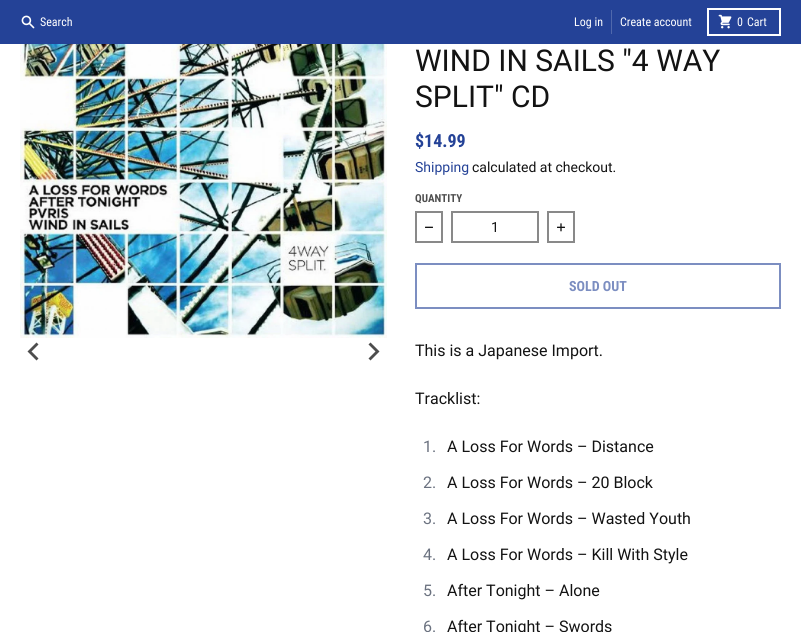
import math
import cairo


def use_color(cr, r, g, b):
  cr.set_source_rgb(r / 255, g / 255, b / 255)

def text(cr, x, y, s, family, size, color, bold=False, italic=False):
  cr.select_font_face(family, cairo.FONT_SLANT_ITALIC if italic else cairo.FONT_SLANT_NORMAL, cairo.FONT_WEIGHT_BOLD if bold else cairo.FONT_WEIGHT_NORMAL)
  cr.set_font_size(size)
  use_color(cr, *color)
  cr.move_to(x, y)
  cr.show_text(s)

def box(cr, x, y, w, h, *color):
  use_color(cr, *color)
  cr.rectangle(x, y, w, h)
  cr.fill()

def picture(cr, path, x, y, w, h):
  cr.save()
  cr.set_source_surface(cairo.ImageSurface.create_from_png(path), x, y)
  cr.rectangle(x, y, w, h)
  cr.fill()
  cr.restore()

def draw(cr):
  use_color(cr, 255, 255, 255)
  cr.paint()
  box(cr, 0, 0, 801, 44, 36, 66, 151)
  picture(cr, "img_01.png", 21, 15, 14, 14)
  box(cr, 611, 10, 1, 24, 80, 104, 172)
  cr.rectangle(708, 9, 72, 26)
  use_color(cr, 255, 255, 255)
  cr.stroke()
  picture(cr, "img_02.png", 718, 14, 14, 15)
  picture(cr, "img_03.png", 20, 44, 367, 294)
  use_color(cr, 77, 77, 77)
  cr.new_path()
  cr.move_to(36.5, 342.5)
  cr.line_to(38.5, 344.5)
  cr.line_to(31.5, 351.5)
  cr.line_to(38.5, 358.5)
  cr.line_to(36.5, 360.5)
  cr.line_to(27.5, 351.5)
  cr.close_path()
  cr.fill()
  cr.new_path()
  cr.move_to(370.5, 342.5)
  cr.line_to(368.5, 344.5)
  cr.line_to(375.5, 351.5)
  cr.line_to(368.5, 358.5)
  cr.line_to(370.5, 360.5)
  cr.line_to(379.5, 351.5)
  cr.close_path()
  cr.fill()
  cr.rectangle(416, 212, 26, 30)
  use_color(cr, 137, 137, 137)
  cr.stroke()
  picture(cr, "img_04.png", 425, 226, 8, 2)
  cr.rectangle(452, 212, 86, 30)
  cr.stroke()
  cr.rectangle(548, 212, 26, 30)
  cr.stroke()
  picture(cr, "img_05.png", 557, 223, 8, 9)
  cr.rectangle(416, 264, 364, 44)
  use_color(cr, 124, 142, 193)
  cr.stroke()
  text(cr, 40, 26, "Search", "Roboto Condensed", 12, (255, 255, 255))
  text(cr, 574, 26, "Log in", "Roboto Condensed", 12, (255, 255, 255))
  text(cr, 620, 26, "Create account", "Roboto Condensed", 12, (255, 255, 255))
  text(cr, 737, 26, "0", "Roboto Condensed", 12, (255, 255, 255))
  text(cr, 747, 26, "Cart", "Roboto Condensed", 12, (255, 255, 255))
  text(cr, 415, 71, "WIND IN SAILS \"4 WAY", "Roboto", 30, (19, 19, 19))
  text(cr, 415, 107, "SPLIT\" CD", "Roboto", 30, (19, 19, 19))
  text(cr, 415, 147, "$14.99", "Roboto Condensed", 18, (36, 66, 151), bold=True)
  text(cr, 415, 172, "Shipping", "Roboto", 14, (36, 66, 151))
  text(cr, 472, 172, "calculated at checkout.", "Roboto", 14, (19, 19, 19))
  text(cr, 415, 202, "QUANTITY", "Roboto Condensed", 11, (78, 78, 78), bold=True)
  text(cr, 491, 232, "1", "Roboto", 14, (19, 19, 19))
  text(cr, 569, 291, "SOLD OUT", "Roboto Condensed", 14, (124, 142, 193), bold=True)
  text(cr, 415, 356, "This is a Japanese Import.", "Roboto", 16, (19, 19, 19))
  text(cr, 415, 404, "Tracklist:", "Roboto", 16, (19, 19, 19))
  text(cr, 423, 452, "1.", "Roboto", 16, (107, 114, 128))
  text(cr, 447, 452, "A Loss For Words – Distance", "Roboto", 16, (19, 19, 19))
  text(cr, 423, 488, "2.", "Roboto", 16, (107, 114, 128))
  text(cr, 447, 488, "A Loss For Words – 20 Block", "Roboto", 16, (19, 19, 19))
  text(cr, 423, 524, "3.", "Roboto", 16, (107, 114, 128))
  text(cr, 447, 524, "A Loss For Words – Wasted Youth", "Roboto", 16, (19, 19, 19))
  text(cr, 423, 560, "4.", "Roboto", 16, (107, 114, 128))
  text(cr, 447, 560, "A Loss For Words – Kill With Style", "Roboto", 16, (19, 19, 19))
  text(cr, 423, 596, "5.", "Roboto", 16, (107, 114, 128))
  text(cr, 447, 596, "After Tonight – Alone", "Roboto", 16, (19, 19, 19))
  text(cr, 423, 632, "6.", "Roboto", 16, (107, 114, 128))
  text(cr, 447, 632, "After Tonight – Swords", "Roboto", 16, (19, 19, 19))


surface = cairo.ImageSurface(cairo.FORMAT_RGB24, 801, 632)
cr = cairo.Context(surface)
options = cairo.FontOptions()
options.set_hint_metrics(cairo.HINT_METRICS_OFF)
options.set_hint_style(cairo.HINT_STYLE_NONE)
cr.set_font_options(options)
cr.set_miter_limit(4)
draw(cr)
surface.write_to_png("out.png")
